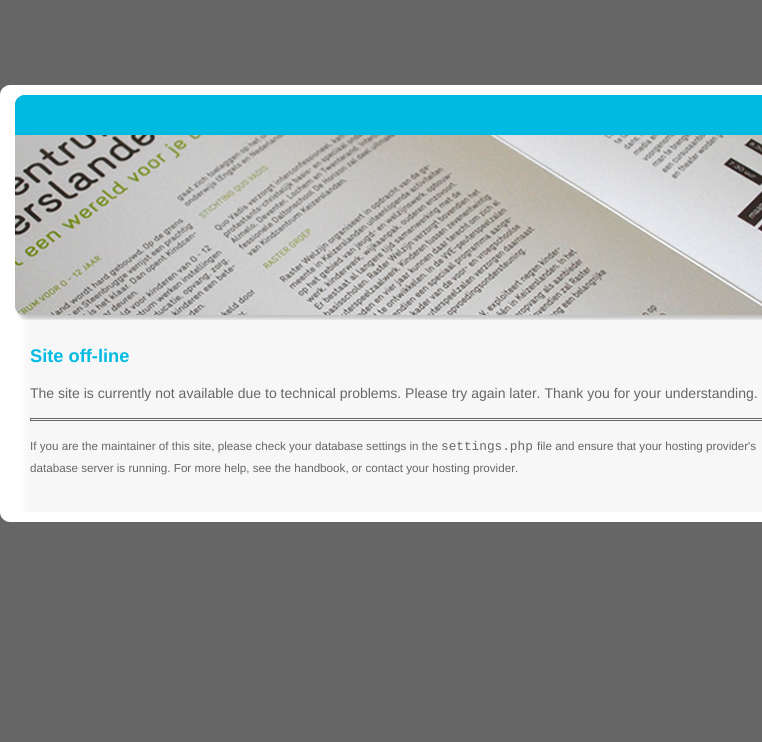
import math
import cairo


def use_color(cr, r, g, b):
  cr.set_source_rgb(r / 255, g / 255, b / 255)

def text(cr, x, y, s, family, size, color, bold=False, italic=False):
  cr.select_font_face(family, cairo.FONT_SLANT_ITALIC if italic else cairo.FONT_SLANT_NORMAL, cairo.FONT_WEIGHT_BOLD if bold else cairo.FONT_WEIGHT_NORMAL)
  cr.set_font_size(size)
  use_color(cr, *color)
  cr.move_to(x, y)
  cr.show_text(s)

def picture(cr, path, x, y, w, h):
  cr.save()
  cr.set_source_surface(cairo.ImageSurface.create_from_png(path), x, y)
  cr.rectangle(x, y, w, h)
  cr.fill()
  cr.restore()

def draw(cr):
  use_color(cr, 102, 102, 102)
  cr.paint()
  picture(cr, "img_01.png", 0, 85, 762, 10)
  picture(cr, "img_02.png", 0, 95, 762, 417)
  picture(cr, "img_03.png", 15, 95, 747, 225)
  cr.rectangle(30.5, 418.5, 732, 2)
  use_color(cr, 102, 102, 102)
  cr.set_line_width(1)
  cr.stroke()
  picture(cr, "img_04.png", 0, 512, 762, 10)
  text(cr, 30, 362, "Site off-line", "Liberation Sans", 18.25, (0, 186, 225), bold=True)
  text(cr, 30, 398, "The site is currently not available due to technical problems. Please try again later. Thank you for your understanding.", "Liberation Sans", 14, (102, 102, 102))
  text(cr, 30, 450, "If you are the maintainer of this site, please check your database settings in the", "Liberation Sans", 11.65, (102, 102, 102))
  text(cr, 441, 450, "settings.php", "Liberation Mono", 12.75, (102, 102, 102))
  text(cr, 537, 450, "file and ensure that your hosting provider's", "Liberation Sans", 11.65, (102, 102, 102))
  text(cr, 30, 472, "database server is running. For more help, see the handbook, or contact your hosting provider.", "Liberation Sans", 11.65, (102, 102, 102))


surface = cairo.ImageSurface(cairo.FORMAT_RGB24, 762, 742)
cr = cairo.Context(surface)
options = cairo.FontOptions()
options.set_hint_metrics(cairo.HINT_METRICS_OFF)
options.set_hint_style(cairo.HINT_STYLE_NONE)
cr.set_font_options(options)
cr.set_miter_limit(4)
draw(cr)
surface.write_to_png("out.png")
